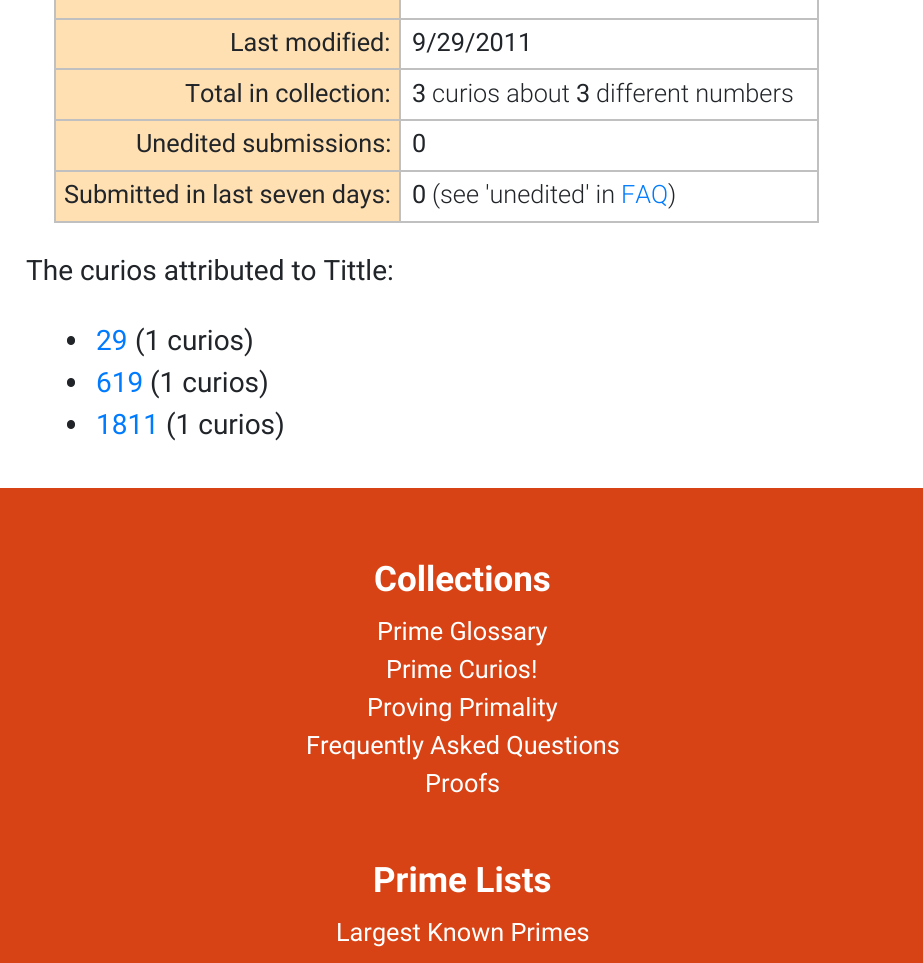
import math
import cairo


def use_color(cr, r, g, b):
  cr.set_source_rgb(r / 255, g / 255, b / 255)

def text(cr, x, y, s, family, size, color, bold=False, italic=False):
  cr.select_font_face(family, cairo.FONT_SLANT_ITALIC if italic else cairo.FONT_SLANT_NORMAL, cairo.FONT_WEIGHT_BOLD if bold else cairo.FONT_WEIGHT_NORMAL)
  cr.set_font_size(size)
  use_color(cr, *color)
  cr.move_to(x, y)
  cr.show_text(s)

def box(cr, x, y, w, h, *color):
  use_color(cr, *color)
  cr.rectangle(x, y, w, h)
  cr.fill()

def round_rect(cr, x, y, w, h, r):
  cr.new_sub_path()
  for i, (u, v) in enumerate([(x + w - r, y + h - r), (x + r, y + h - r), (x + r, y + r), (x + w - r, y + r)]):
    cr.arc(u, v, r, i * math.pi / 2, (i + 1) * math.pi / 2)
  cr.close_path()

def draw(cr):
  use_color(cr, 255, 255, 255)
  cr.paint()
  box(cr, 56, 0, 343, 18, 255, 224, 178)
  box(cr, 399, 18, 420, 2, 192, 192, 192)
  box(cr, 399, 68, 420, 2, 192, 192, 192)
  box(cr, 399, 119, 420, 2, 192, 192, 192)
  box(cr, 399, 170, 420, 2, 192, 192, 192)
  box(cr, 817, 170, 2, 52, 192, 192, 192)
  box(cr, 399, 221, 420, 2, 192, 192, 192)
  box(cr, 399, 170, 2, 52, 192, 192, 192)
  box(cr, 54, 170, 347, 2, 192, 192, 192)
  box(cr, 399, 119, 2, 53, 192, 192, 192)
  box(cr, 54, 119, 347, 2, 192, 192, 192)
  box(cr, 399, 68, 2, 53, 192, 192, 192)
  box(cr, 54, 68, 347, 2, 192, 192, 192)
  box(cr, 399, 18, 2, 52, 192, 192, 192)
  box(cr, 54, 18, 347, 2, 192, 192, 192)
  box(cr, 399, 0, 2, 19, 192, 192, 192)
  box(cr, 56, 20, 343, 48, 255, 224, 178)
  box(cr, 54, 221, 347, 2, 192, 192, 192)
  box(cr, 54, 170, 2, 52, 192, 192, 192)
  box(cr, 54, 119, 2, 53, 192, 192, 192)
  box(cr, 54, 68, 2, 53, 192, 192, 192)
  box(cr, 54, 0, 2, 70, 192, 192, 192)
  box(cr, 817, 119, 2, 53, 192, 192, 192)
  box(cr, 817, 68, 2, 53, 192, 192, 192)
  box(cr, 817, 0, 2, 70, 192, 192, 192)
  box(cr, 56, 70, 343, 49, 255, 224, 178)
  box(cr, 56, 121, 343, 49, 255, 224, 178)
  box(cr, 56, 172, 343, 49, 255, 224, 178)
  use_color(cr, 33, 37, 41)
  round_rect(cr, 67, 336, 8, 9, 4)
  cr.fill()
  round_rect(cr, 67, 378, 8, 9, 4)
  cr.fill()
  round_rect(cr, 67, 420, 8, 9, 4)
  cr.fill()
  box(cr, 0, 488, 923, 475, 216, 67, 21)
  text(cr, 230, 51, "Last modified:", "Roboto", 25.25, (33, 37, 41))
  text(cr, 412, 51, "9/29/2011", "Roboto", 25.25, (33, 37, 41))
  text(cr, 185, 102, "Total in collection:", "Roboto", 25.25, (33, 37, 41))
  text(cr, 412, 102, "3", "Roboto", 25.25, (33, 37, 41))
  text(cr, 432, 102, "curios about", "Roboto Light", 25.25, (33, 37, 41))
  text(cr, 576, 102, "3", "Roboto", 25.25, (33, 37, 41))
  text(cr, 596, 102, "different numbers", "Roboto Light", 25.25, (33, 37, 41))
  text(cr, 136, 152, "Unedited submissions:", "Roboto", 25.25, (33, 37, 41))
  text(cr, 412, 152, "0", "Roboto", 25.25, (33, 37, 41))
  text(cr, 64, 203, "Submitted in last seven days:", "Roboto", 25.25, (33, 37, 41))
  text(cr, 412, 203, "0", "Roboto", 25.25, (33, 37, 41))
  text(cr, 432, 203, "(see 'unedited' in", "Roboto Light", 25.25, (33, 37, 41))
  text(cr, 621, 203, "FAQ", "Roboto Light", 25.25, (0, 123, 255))
  text(cr, 668, 203, ")", "Roboto Light", 25.25, (33, 37, 41))
  text(cr, 26, 280, "The curios attributed to Tittle:", "Roboto", 28, (33, 37, 41))
  text(cr, 96, 350, "29", "Roboto", 28, (0, 123, 255))
  text(cr, 135, 350, "(1 curios)", "Roboto", 28, (33, 37, 41))
  text(cr, 96, 392, "619", "Roboto", 28, (0, 123, 255))
  text(cr, 150, 392, "(1 curios)", "Roboto", 28, (33, 37, 41))
  text(cr, 96, 434, "1811", "Roboto", 28, (0, 123, 255))
  text(cr, 166, 434, "(1 curios)", "Roboto", 28, (33, 37, 41))
  text(cr, 374, 591, "Collections", "Roboto", 35, (255, 255, 255), bold=True)
  text(cr, 377, 640, "Prime Glossary", "Roboto", 25.25, (255, 255, 255))
  text(cr, 386, 678, "Prime Curios!", "Roboto", 25.25, (255, 255, 255))
  text(cr, 367, 716, "Proving Primality", "Roboto", 25.25, (255, 255, 255))
  text(cr, 306, 754, "Frequently Asked Questions", "Roboto", 25.25, (255, 255, 255))
  text(cr, 425, 792, "Proofs", "Roboto", 25.25, (255, 255, 255))
  text(cr, 373, 892, "Prime Lists", "Roboto", 35, (255, 255, 255), bold=True)
  text(cr, 336, 941, "Largest Known Primes", "Roboto", 25.25, (255, 255, 255))


surface = cairo.ImageSurface(cairo.FORMAT_RGB24, 923, 963)
cr = cairo.Context(surface)
options = cairo.FontOptions()
options.set_hint_metrics(cairo.HINT_METRICS_OFF)
options.set_hint_style(cairo.HINT_STYLE_NONE)
cr.set_font_options(options)
cr.set_miter_limit(4)
draw(cr)
surface.write_to_png("out.png")
